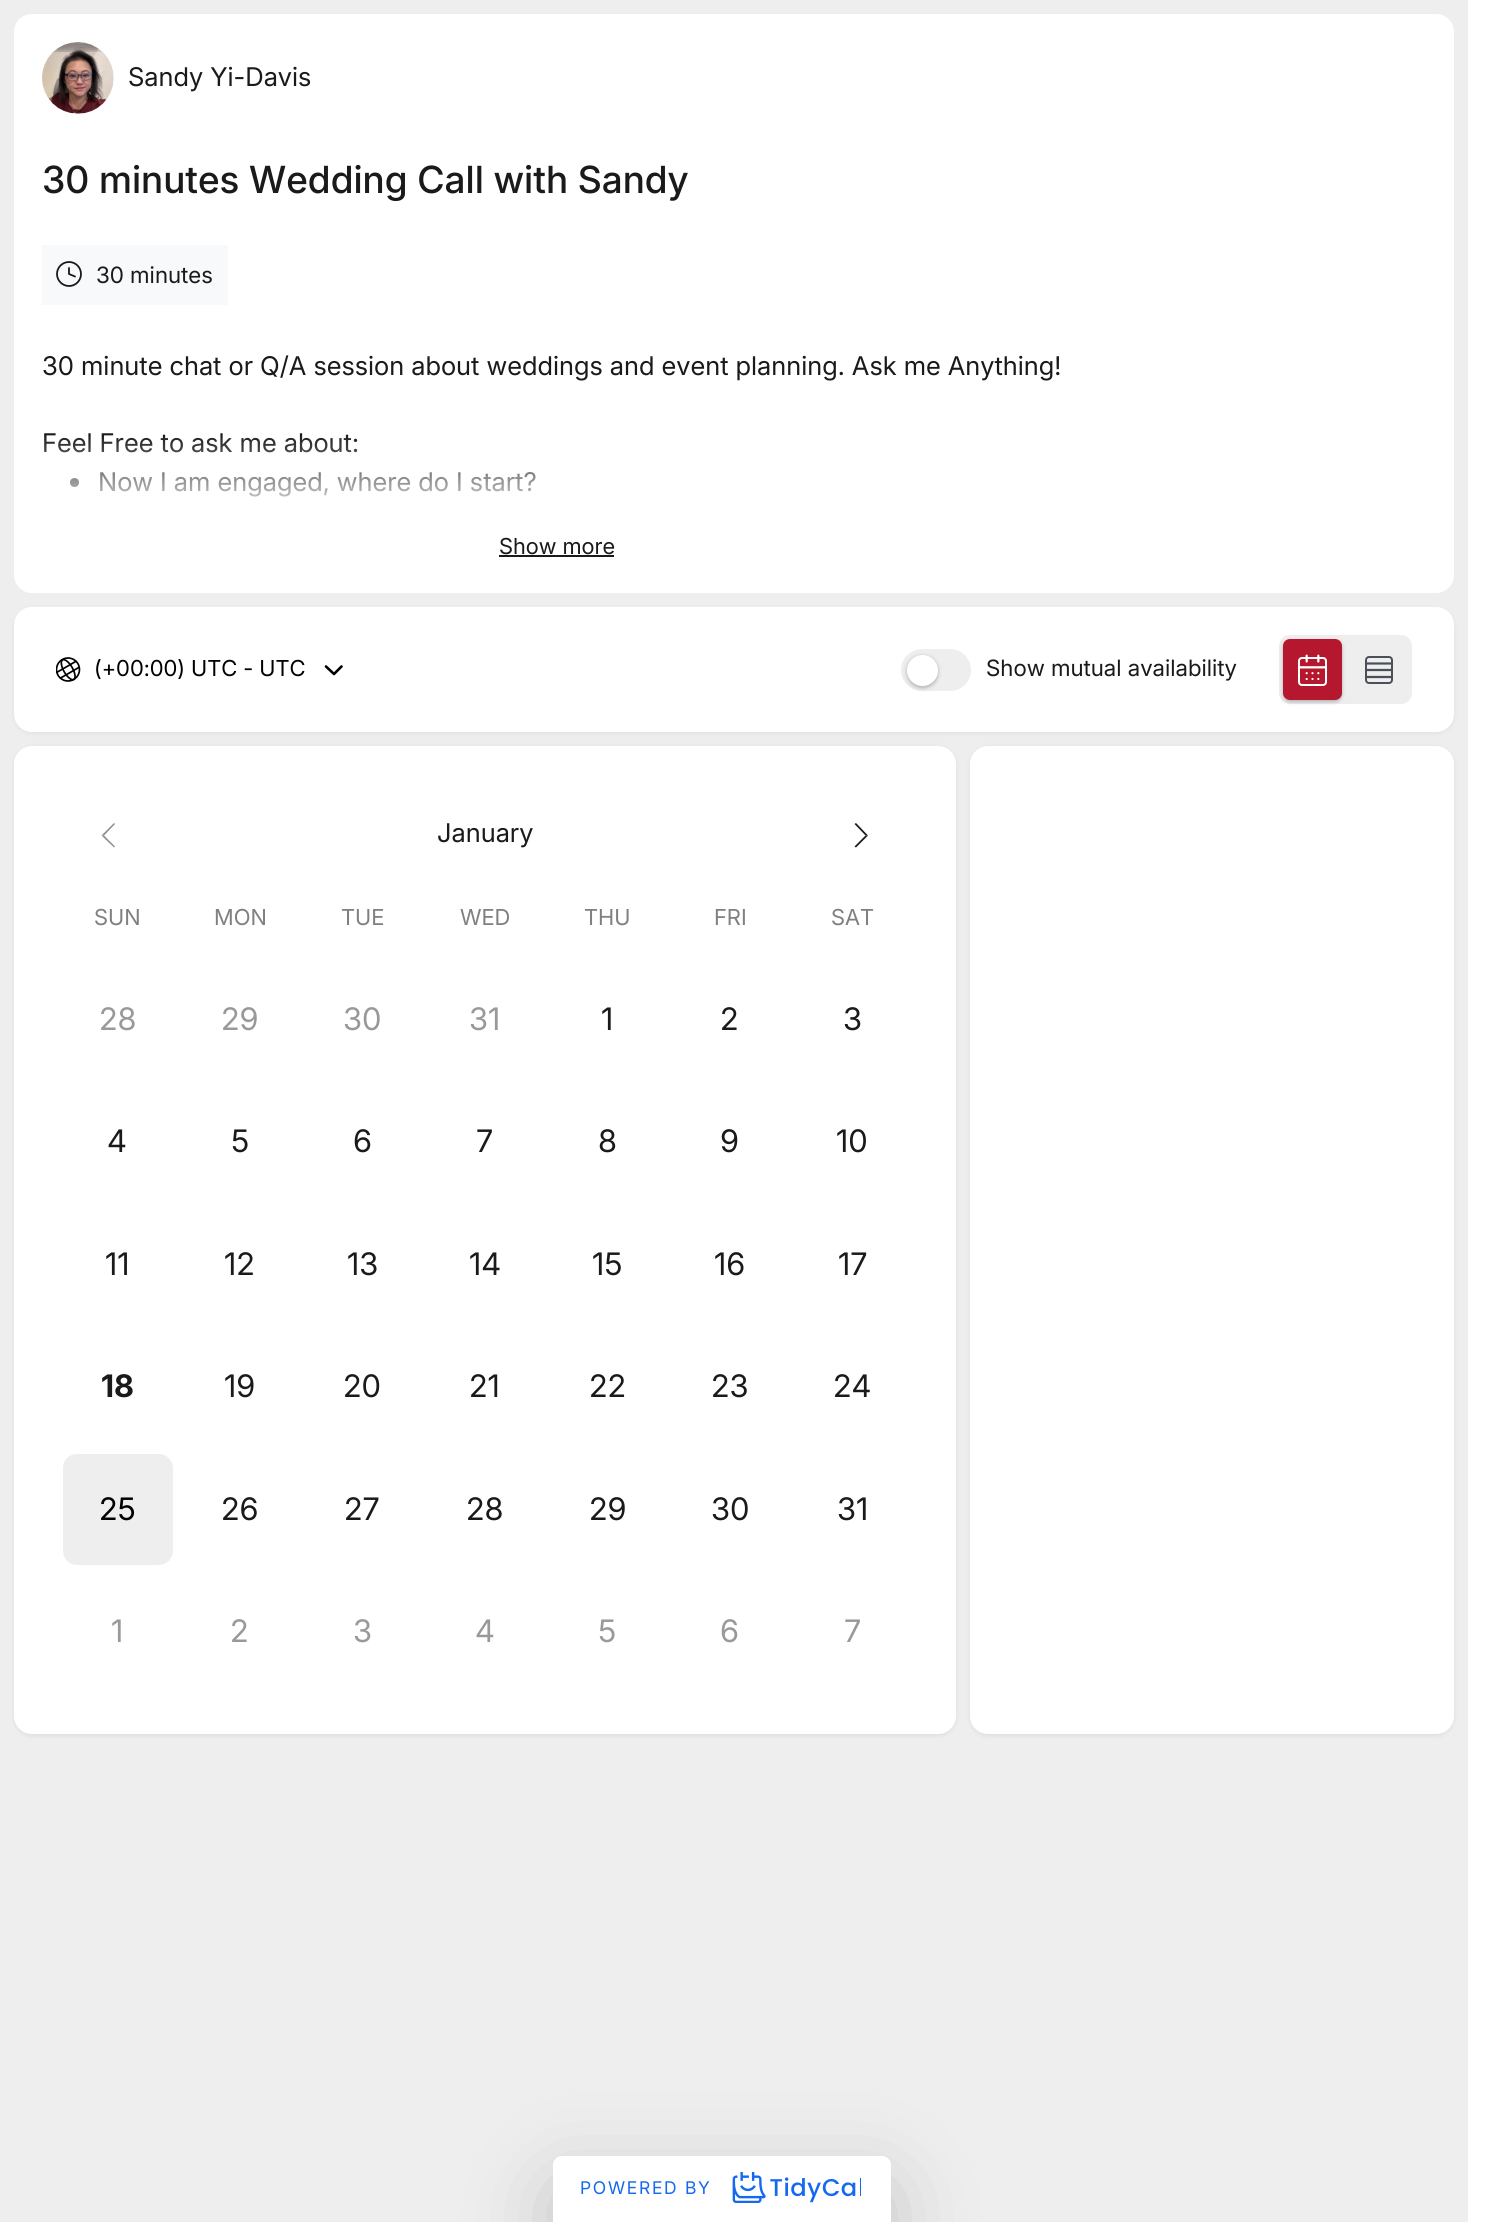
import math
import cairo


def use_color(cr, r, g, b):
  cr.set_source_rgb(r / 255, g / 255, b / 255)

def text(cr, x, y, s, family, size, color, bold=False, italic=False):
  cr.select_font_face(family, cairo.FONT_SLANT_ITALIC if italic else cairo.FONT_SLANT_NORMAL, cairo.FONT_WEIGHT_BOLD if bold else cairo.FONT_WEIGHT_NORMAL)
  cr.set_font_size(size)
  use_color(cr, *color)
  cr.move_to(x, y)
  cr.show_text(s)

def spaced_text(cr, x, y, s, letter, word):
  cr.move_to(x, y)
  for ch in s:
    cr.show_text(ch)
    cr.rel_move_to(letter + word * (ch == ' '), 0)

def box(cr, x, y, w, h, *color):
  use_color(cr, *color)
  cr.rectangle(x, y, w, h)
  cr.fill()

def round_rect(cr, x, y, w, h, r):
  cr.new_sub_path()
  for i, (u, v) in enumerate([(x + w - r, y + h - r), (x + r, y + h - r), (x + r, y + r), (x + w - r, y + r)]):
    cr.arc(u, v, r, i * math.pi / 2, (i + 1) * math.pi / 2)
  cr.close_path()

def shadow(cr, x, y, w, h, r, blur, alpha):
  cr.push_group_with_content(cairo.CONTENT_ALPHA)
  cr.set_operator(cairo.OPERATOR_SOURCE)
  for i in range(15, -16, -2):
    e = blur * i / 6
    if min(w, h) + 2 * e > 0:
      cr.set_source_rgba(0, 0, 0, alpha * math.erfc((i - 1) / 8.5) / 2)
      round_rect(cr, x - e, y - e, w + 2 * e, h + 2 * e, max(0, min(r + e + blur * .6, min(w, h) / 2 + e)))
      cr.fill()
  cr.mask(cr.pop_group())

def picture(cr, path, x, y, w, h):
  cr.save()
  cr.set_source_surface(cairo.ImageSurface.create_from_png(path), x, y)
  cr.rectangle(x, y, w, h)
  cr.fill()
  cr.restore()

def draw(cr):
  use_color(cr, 255, 255, 255)
  cr.paint()
  box(cr, 0, 0, 1468, 2222, 238, 238, 239)
  use_color(cr, 255, 255, 255)
  round_rect(cr, 14, 14, 1440, 579, 18)
  cr.fill()
  picture(cr, "img_01.png", 42, 42, 72, 72)
  box(cr, 42, 245, 186, 60, 248, 249, 250)
  cr.arc(69, 274, 12, 0, 2 * math.pi)
  use_color(cr, 25, 25, 25)
  cr.set_line_width(1.8)
  cr.stroke()
  cr.new_path()
  cr.move_to(69, 268)
  cr.line_to(69, 274)
  cr.line_to(75, 276.5)
  cr.set_line_cap(cairo.LINE_CAP_ROUND)
  cr.set_line_join(cairo.LINE_JOIN_ROUND)
  cr.stroke()
  use_color(cr, 26, 26, 26)
  cr.arc(74.5, 482.5, 4.5, 0, 2 * math.pi)
  cr.fill()
  box(cr, 499, 555, 115, 2, 26, 26, 26)
  use_color(cr, 0, 0, 0)
  shadow(cr, 14, 609, 1440, 124, 18, 2.5, 0.07)
  use_color(cr, 255, 255, 255)
  round_rect(cr, 14, 607, 1440, 125, 18)
  cr.fill()
  picture(cr, "img_02.png", 56, 657, 25, 25)
  cr.new_path()
  cr.move_to(326, 666.5)
  cr.line_to(334, 674)
  cr.line_to(341.5, 666.5)
  use_color(cr, 0, 0, 0)
  cr.set_line_width(2.6)
  cr.stroke()
  use_color(cr, 238, 238, 239)
  round_rect(cr, 901, 649, 70, 42, 21)
  cr.fill()
  use_color(cr, 0, 0, 0)
  shadow(cr, 907, 656, 31, 32, 15.5, 2, 0.25)
  use_color(cr, 255, 255, 255)
  cr.arc(922.5, 670.5, 15.5, 0, 2 * math.pi)
  cr.fill()
  use_color(cr, 238, 238, 239)
  round_rect(cr, 1279, 635, 133, 69, 11)
  cr.fill()
  use_color(cr, 0, 0, 0)
  shadow(cr, 1283, 641, 59, 61, 7, 2, 0.25)
  use_color(cr, 181, 23, 47)
  round_rect(cr, 1283, 639, 59, 61, 7)
  cr.fill()
  picture(cr, "img_03.png", 1298, 654, 29, 32)
  round_rect(cr, 1366, 657, 26, 26, 3)
  use_color(cr, 73, 80, 87)
  cr.set_line_width(2)
  cr.set_line_cap(cairo.LINE_CAP_BUTT)
  cr.set_line_join(cairo.LINE_JOIN_MITER)
  cr.stroke()
  cr.new_path()
  cr.move_to(1392, 663.5)
  cr.line_to(1366, 663.5)
  cr.move_to(1392, 670)
  cr.line_to(1366, 670)
  cr.move_to(1392, 677)
  cr.line_to(1366, 677)
  cr.set_line_width(2.2)
  cr.set_line_cap(cairo.LINE_CAP_ROUND)
  cr.set_line_join(cairo.LINE_JOIN_ROUND)
  cr.stroke()
  use_color(cr, 0, 0, 0)
  shadow(cr, 14, 747, 942, 989, 18, 2.5, 0.07)
  use_color(cr, 255, 255, 255)
  round_rect(cr, 14, 746, 942, 988, 18)
  cr.fill()
  use_color(cr, 141, 141, 141)
  cr.new_path()
  cr.move_to(114, 847.5)
  cr.line_to(101.5, 835.5)
  cr.line_to(104, 835.5)
  cr.line_to(115, 846.5)
  cr.close_path()
  cr.fill()
  cr.set_source_rgba(0.502, 0.502, 0.502, 0.9)
  cr.new_path()
  cr.move_to(101.5, 835.5)
  cr.line_to(114, 823)
  cr.line_to(115, 824)
  cr.line_to(104, 835.5)
  cr.close_path()
  cr.fill()
  use_color(cr, 26, 26, 26)
  cr.new_path()
  cr.move_to(856, 823)
  cr.line_to(868, 835.5)
  cr.line_to(865.5, 835.5)
  cr.line_to(854.5, 824)
  cr.close_path()
  cr.fill()
  cr.new_path()
  cr.move_to(868, 835.5)
  cr.line_to(856, 847.5)
  cr.line_to(854.5, 846.5)
  cr.line_to(865.5, 835.5)
  cr.close_path()
  cr.fill()
  use_color(cr, 238, 238, 239)
  round_rect(cr, 63, 1454, 110, 111, 14)
  cr.fill()
  use_color(cr, 0, 0, 0)
  shadow(cr, 970, 747, 484, 989, 18, 2.5, 0.07)
  use_color(cr, 255, 255, 255)
  round_rect(cr, 970, 746, 484, 988, 18)
  cr.fill()
  use_color(cr, 0, 0, 0)
  shadow(cr, 553, 2184, 338, 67, 9, 42, 0.18)
  use_color(cr, 255, 255, 255)
  cr.new_path()
  cr.move_to(562, 2156)
  cr.line_to(882, 2156)
  cr.curve_to(887, 2156, 891, 2160, 891, 2165)
  cr.line_to(891, 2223)
  cr.line_to(553, 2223)
  cr.line_to(553, 2165)
  cr.curve_to(553, 2160, 557, 2156, 562, 2156)
  cr.close_path()
  cr.fill()
  picture(cr, "img_04.png", 732, 2172, 129, 31)
  text(cr, 128, 86, "Sandy Yi-Davis", "Inter", 25.75, (26, 26, 26))
  text(cr, 42, 193, "30 minutes Wedding Call with Sandy", "Inter Medium", 37.4, (26, 26, 26))
  text(cr, 96, 283, "30 minutes", "Inter", 22.5, (26, 26, 26))
  text(cr, 42, 375, "30 minute chat or Q/A session about weddings and event planning. Ask me Anything!", "Inter", 25.75, (26, 26, 26))
  text(cr, 42, 452, "Feel Free to ask me about:", "Inter", 25.75, (26, 26, 26))
  text(cr, 98, 491, "Now I am engaged, where do I start?", "Inter", 25.75, (26, 26, 26))
  gradient = cairo.LinearGradient(557, 434, 557, 522)
  gradient.add_color_stop_rgba(0, 1, 1, 1, 0)
  gradient.add_color_stop_rgba(1, 1, 1, 1, 1)
  cr.set_source(gradient)
  cr.rectangle(44, 436, 492, 61)
  cr.fill()
  text(cr, 499, 554, "Show more", "Inter", 22, (26, 26, 26))
  text(cr, 94, 676, "(+00:00) UTC - UTC", "Inter", 22, (0, 0, 0))
  text(cr, 986, 676, "Show mutual availability", "Inter", 22.5, (26, 26, 26))
  text(cr, 437, 842, "January", "Inter", 25.75, (26, 26, 26))
  text(cr, 94, 925, "SUN", "Inter", 22, (128, 128, 128))
  text(cr, 214, 925, "MON", "Inter", 22, (128, 128, 128))
  text(cr, 341, 925, "TUE", "Inter", 22, (128, 128, 128))
  text(cr, 460, 925, "WED", "Inter", 22, (128, 128, 128))
  text(cr, 584, 925, "THU", "Inter", 22, (128, 128, 128))
  text(cr, 714, 925, "FRI", "Inter", 22, (128, 128, 128))
  text(cr, 831, 925, "SAT", "Inter", 22, (128, 128, 128))
  text(cr, 99, 1030, "28", "Inter", 31, (153, 153, 153))
  text(cr, 221, 1030, "29", "Inter", 31, (153, 153, 153))
  text(cr, 343, 1030, "30", "Inter", 31, (153, 153, 153))
  text(cr, 469, 1030, "31", "Inter", 31, (153, 153, 153))
  text(cr, 601, 1030, "1", "Inter", 31, (26, 26, 26))
  text(cr, 720, 1030, "2", "Inter", 31, (26, 26, 26))
  text(cr, 843, 1030, "3", "Inter", 31, (26, 26, 26))
  text(cr, 107, 1152, "4", "Inter", 31, (26, 26, 26))
  text(cr, 231, 1152, "5", "Inter", 31, (26, 26, 26))
  text(cr, 353, 1152, "6", "Inter", 31, (26, 26, 26))
  text(cr, 476, 1152, "7", "Inter", 31, (26, 26, 26))
  text(cr, 598, 1152, "8", "Inter", 31, (26, 26, 26))
  text(cr, 720, 1152, "9", "Inter", 31, (26, 26, 26))
  text(cr, 836, 1152, "10", "Inter", 31, (26, 26, 26))
  text(cr, 105, 1275, "11", "Inter", 31, (26, 26, 26))
  text(cr, 224, 1275, "12", "Inter", 31, (26, 26, 26))
  text(cr, 347, 1275, "13", "Inter", 31, (26, 26, 26))
  text(cr, 469, 1275, "14", "Inter", 31, (26, 26, 26))
  text(cr, 592, 1275, "15", "Inter", 31, (26, 26, 26))
  text(cr, 714, 1275, "16", "Inter", 31, (26, 26, 26))
  text(cr, 838, 1275, "17", "Inter", 31, (26, 26, 26))
  text(cr, 101, 1397, "18", "Inter", 31, (26, 26, 26), bold=True)
  text(cr, 224, 1397, "19", "Inter", 31, (26, 26, 26))
  text(cr, 343, 1397, "20", "Inter", 31, (26, 26, 26))
  text(cr, 469, 1397, "21", "Inter", 31, (26, 26, 26))
  text(cr, 589, 1397, "22", "Inter", 31, (26, 26, 26))
  text(cr, 711, 1397, "23", "Inter", 31, (26, 26, 26))
  text(cr, 833, 1397, "24", "Inter", 31, (26, 26, 26))
  text(cr, 99, 1520, "25", "Inter", 31, (0, 0, 0))
  text(cr, 221, 1520, "26", "Inter", 31, (26, 26, 26))
  text(cr, 344, 1520, "27", "Inter", 31, (26, 26, 26))
  text(cr, 466, 1520, "28", "Inter", 31, (26, 26, 26))
  text(cr, 589, 1520, "29", "Inter", 31, (26, 26, 26))
  text(cr, 711, 1520, "30", "Inter", 31, (26, 26, 26))
  text(cr, 837, 1520, "31", "Inter", 31, (26, 26, 26))
  text(cr, 111, 1642, "1", "Inter", 31, (153, 153, 153))
  text(cr, 230, 1642, "2", "Inter", 31, (153, 153, 153))
  text(cr, 353, 1642, "3", "Inter", 31, (153, 153, 153))
  text(cr, 475, 1642, "4", "Inter", 31, (153, 153, 153))
  text(cr, 598, 1642, "5", "Inter", 31, (153, 153, 153))
  text(cr, 720, 1642, "6", "Inter", 31, (153, 153, 153))
  text(cr, 844, 1642, "7", "Inter", 31, (153, 153, 153))
  cr.set_font_size(17.5)
  use_color(cr, 21, 105, 239)
  spaced_text(cr, 580, 2194, "POWERED BY", 1.75, 0)


surface = cairo.ImageSurface(cairo.FORMAT_RGB24, 1493, 2222)
cr = cairo.Context(surface)
options = cairo.FontOptions()
options.set_hint_metrics(cairo.HINT_METRICS_OFF)
options.set_hint_style(cairo.HINT_STYLE_NONE)
cr.set_font_options(options)
cr.set_miter_limit(4)
draw(cr)
surface.write_to_png("out.png")
